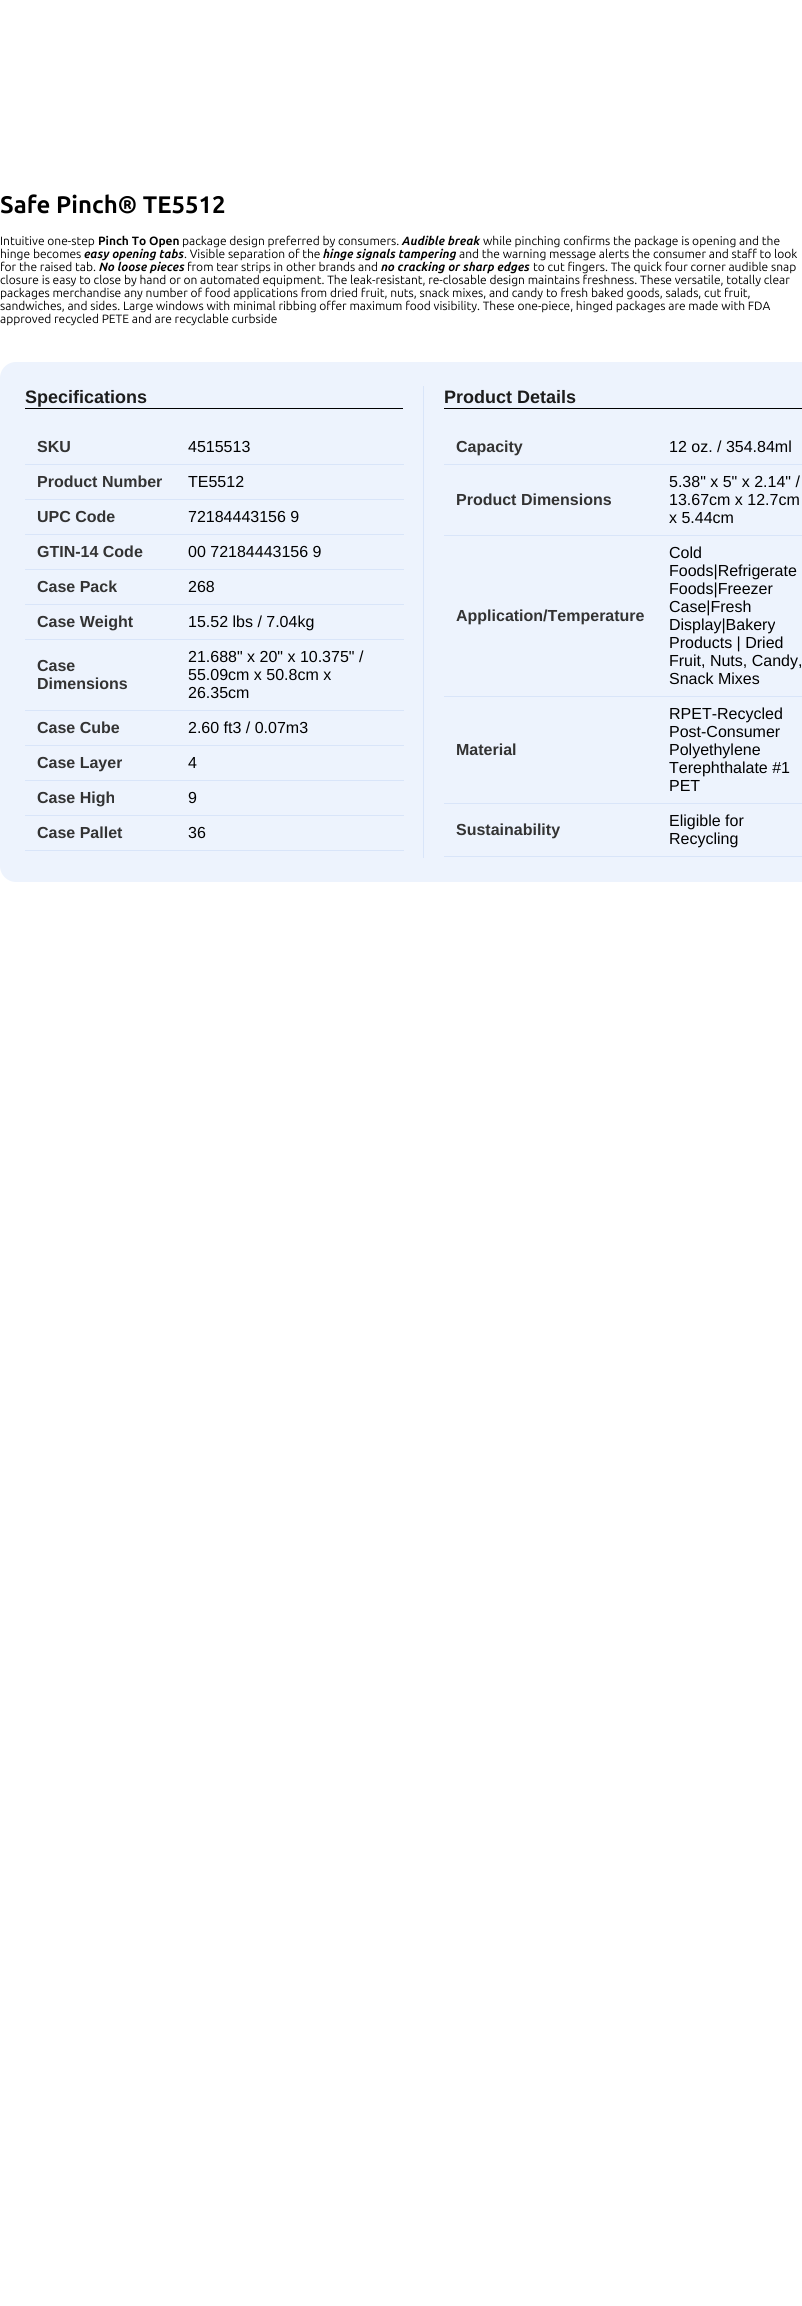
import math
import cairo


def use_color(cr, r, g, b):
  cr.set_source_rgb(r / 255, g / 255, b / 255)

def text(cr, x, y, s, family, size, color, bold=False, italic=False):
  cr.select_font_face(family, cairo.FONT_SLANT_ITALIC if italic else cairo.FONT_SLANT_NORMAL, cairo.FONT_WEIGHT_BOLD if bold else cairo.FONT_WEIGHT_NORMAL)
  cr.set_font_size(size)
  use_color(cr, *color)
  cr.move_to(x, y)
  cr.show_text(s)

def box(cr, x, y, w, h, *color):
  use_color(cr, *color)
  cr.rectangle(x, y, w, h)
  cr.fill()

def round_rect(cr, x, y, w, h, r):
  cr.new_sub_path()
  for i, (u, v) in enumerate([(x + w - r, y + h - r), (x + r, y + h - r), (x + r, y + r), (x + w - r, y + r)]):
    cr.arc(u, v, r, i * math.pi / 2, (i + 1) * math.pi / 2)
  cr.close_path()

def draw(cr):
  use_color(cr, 255, 255, 255)
  cr.paint()
  use_color(cr, 237, 243, 253)
  round_rect(cr, 0, 362, 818, 520, 16)
  cr.fill()
  box(cr, 423, 386, 1, 472, 217, 229, 249)
  box(cr, 25, 408, 378, 1, 0, 0, 0)
  box(cr, 25, 464, 379, 1, 217, 229, 249)
  box(cr, 25, 499, 379, 1, 217, 229, 249)
  box(cr, 25, 534, 379, 1, 217, 229, 249)
  box(cr, 25, 569, 379, 1, 217, 229, 249)
  box(cr, 25, 604, 379, 1, 217, 229, 249)
  box(cr, 25, 639, 379, 1, 217, 229, 249)
  box(cr, 25, 710, 379, 1, 217, 229, 249)
  box(cr, 25, 745, 379, 1, 217, 229, 249)
  box(cr, 25, 780, 379, 1, 217, 229, 249)
  box(cr, 25, 815, 379, 1, 217, 229, 249)
  box(cr, 25, 850, 379, 1, 217, 229, 249)
  box(cr, 444, 408, 358, 1, 0, 0, 0)
  box(cr, 444, 464, 358, 1, 217, 229, 249)
  box(cr, 444, 535, 358, 1, 217, 229, 249)
  box(cr, 444, 696, 358, 1, 217, 229, 249)
  box(cr, 444, 803, 358, 1, 217, 229, 249)
  box(cr, 444, 856, 358, 1, 217, 229, 249)
  text(cr, 0, 213, "Safe Pinch® TE5512", "Ubuntu", 24, (0, 0, 0), bold=True)
  text(cr, 0, 245, "Intuitive one-step", "Ubuntu", 12, (0, 0, 0))
  text(cr, 98, 245, "Pinch To Open", "Ubuntu", 12, (0, 0, 0), bold=True)
  text(cr, 182, 245, "package design preferred by consumers.", "Ubuntu", 12, (0, 0, 0))
  text(cr, 402, 245, "Audible break", "Ubuntu", 12, (0, 0, 0), bold=True, italic=True)
  text(cr, 483, 245, "while pinching confirms the package is opening and the", "Ubuntu", 12, (0, 0, 0))
  text(cr, 0, 258, "hinge becomes", "Ubuntu", 12, (0, 0, 0))
  text(cr, 84, 258, "easy opening tabs", "Ubuntu", 12, (0, 0, 0), bold=True, italic=True)
  text(cr, 184, 258, ". Visible separation of the", "Ubuntu", 12, (0, 0, 0))
  text(cr, 323, 258, "hinge signals tampering", "Ubuntu", 12, (0, 0, 0), bold=True, italic=True)
  text(cr, 459, 258, "and the warning message alerts the consumer and staff to look", "Ubuntu", 12, (0, 0, 0))
  text(cr, 0, 271, "for the raised tab.", "Ubuntu", 12, (0, 0, 0))
  text(cr, 99, 271, "No loose pieces", "Ubuntu", 12, (0, 0, 0), bold=True, italic=True)
  text(cr, 187, 271, "from tear strips in other brands and", "Ubuntu", 12, (0, 0, 0))
  text(cr, 381, 271, "no cracking or sharp edges", "Ubuntu", 12, (0, 0, 0), bold=True, italic=True)
  text(cr, 533, 271, "to cut fingers. The quick four corner audible snap", "Ubuntu", 12, (0, 0, 0))
  text(cr, 0, 284, "closure is easy to close by hand or on automated equipment. The leak-resistant, re-closable design maintains freshness. These versatile, totally clear", "Ubuntu", 12, (0, 0, 0))
  text(cr, 0, 297, "packages merchandise any number of food applications from dried fruit, nuts, snack mixes, and candy to fresh baked goods, salads, cut fruit,", "Ubuntu", 12, (0, 0, 0))
  text(cr, 0, 310, "sandwiches, and sides. Large windows with minimal ribbing offer maximum food visibility. These one-piece, hinged packages are made with FDA", "Ubuntu", 12, (0, 0, 0))
  text(cr, 0, 323, "approved recycled PETE and are recyclable curbside", "Ubuntu", 12, (0, 0, 0))
  text(cr, 25, 403, "Specifications", "Liberation Sans", 18, (28, 28, 28), bold=True)
  text(cr, 37, 452, "SKU", "Liberation Sans", 16, (51, 51, 51), bold=True)
  text(cr, 188, 452, "4515513", "Liberation Sans", 16, (0, 0, 0))
  text(cr, 37, 487, "Product Number", "Liberation Sans", 16, (51, 51, 51), bold=True)
  text(cr, 188, 487, "TE5512", "Liberation Sans", 16, (0, 0, 0))
  text(cr, 37, 522, "UPC Code", "Liberation Sans", 16, (51, 51, 51), bold=True)
  text(cr, 188, 522, "72184443156 9", "Liberation Sans", 16, (0, 0, 0))
  text(cr, 37, 557, "GTIN-14 Code", "Liberation Sans", 16, (51, 51, 51), bold=True)
  text(cr, 188, 557, "00 72184443156 9", "Liberation Sans", 16, (0, 0, 0))
  text(cr, 37, 592, "Case Pack", "Liberation Sans", 16, (51, 51, 51), bold=True)
  text(cr, 188, 592, "268", "Liberation Sans", 16, (0, 0, 0))
  text(cr, 37, 627, "Case Weight", "Liberation Sans", 16, (51, 51, 51), bold=True)
  text(cr, 188, 627, "15.52 lbs / 7.04kg", "Liberation Sans", 16, (0, 0, 0))
  text(cr, 37, 671, "Case", "Liberation Sans", 16, (51, 51, 51), bold=True)
  text(cr, 37, 689, "Dimensions", "Liberation Sans", 16, (51, 51, 51), bold=True)
  text(cr, 188, 662, "21.688\" x 20\" x 10.375\" /", "Liberation Sans", 16, (0, 0, 0))
  text(cr, 188, 680, "55.09cm x 50.8cm x", "Liberation Sans", 16, (0, 0, 0))
  text(cr, 188, 698, "26.35cm", "Liberation Sans", 16, (0, 0, 0))
  text(cr, 37, 733, "Case Cube", "Liberation Sans", 16, (51, 51, 51), bold=True)
  text(cr, 188, 733, "2.60 ft3 / 0.07m3", "Liberation Sans", 16, (0, 0, 0))
  text(cr, 37, 768, "Case Layer", "Liberation Sans", 16, (51, 51, 51), bold=True)
  text(cr, 188, 768, "4", "Liberation Sans", 16, (0, 0, 0))
  text(cr, 37, 803, "Case High", "Liberation Sans", 16, (51, 51, 51), bold=True)
  text(cr, 188, 803, "9", "Liberation Sans", 16, (0, 0, 0))
  text(cr, 37, 838, "Case Pallet", "Liberation Sans", 16, (51, 51, 51), bold=True)
  text(cr, 188, 838, "36", "Liberation Sans", 16, (0, 0, 0))
  text(cr, 444, 403, "Product Details", "Liberation Sans", 18, (28, 28, 28), bold=True)
  text(cr, 456, 452, "Capacity", "Liberation Sans", 16, (51, 51, 51), bold=True)
  text(cr, 669, 452, "12 oz. / 354.84ml", "Liberation Sans", 16, (0, 0, 0))
  text(cr, 456, 505, "Product Dimensions", "Liberation Sans", 16, (51, 51, 51), bold=True)
  text(cr, 669, 487, "5.38\" x 5\" x 2.14\" /", "Liberation Sans", 16, (0, 0, 0))
  text(cr, 669, 505, "13.67cm x 12.7cm", "Liberation Sans", 16, (0, 0, 0))
  text(cr, 669, 523, "x 5.44cm", "Liberation Sans", 16, (0, 0, 0))
  text(cr, 456, 621, "Application/Temperature", "Liberation Sans", 16, (51, 51, 51), bold=True)
  text(cr, 669, 558, "Cold", "Liberation Sans", 16, (0, 0, 0))
  text(cr, 669, 576, "Foods|Refrigerate", "Liberation Sans", 16, (0, 0, 0))
  text(cr, 669, 594, "Foods|Freezer", "Liberation Sans", 16, (0, 0, 0))
  text(cr, 669, 612, "Case|Fresh", "Liberation Sans", 16, (0, 0, 0))
  text(cr, 669, 630, "Display|Bakery", "Liberation Sans", 16, (0, 0, 0))
  text(cr, 669, 648, "Products | Dried", "Liberation Sans", 16, (0, 0, 0))
  text(cr, 669, 666, "Fruit, Nuts, Candy,", "Liberation Sans", 16, (0, 0, 0))
  text(cr, 669, 684, "Snack Mixes", "Liberation Sans", 16, (0, 0, 0))
  text(cr, 456, 755, "Material", "Liberation Sans", 16, (51, 51, 51), bold=True)
  text(cr, 669, 719, "RPET-Recycled", "Liberation Sans", 16, (0, 0, 0))
  text(cr, 669, 737, "Post-Consumer", "Liberation Sans", 16, (0, 0, 0))
  text(cr, 669, 755, "Polyethylene", "Liberation Sans", 16, (0, 0, 0))
  text(cr, 669, 773, "Terephthalate #1", "Liberation Sans", 16, (0, 0, 0))
  text(cr, 669, 791, "PET", "Liberation Sans", 16, (0, 0, 0))
  text(cr, 456, 835, "Sustainability", "Liberation Sans", 16, (51, 51, 51), bold=True)
  text(cr, 669, 826, "Eligible for", "Liberation Sans", 16, (0, 0, 0))
  text(cr, 669, 844, "Recycling", "Liberation Sans", 16, (0, 0, 0))


surface = cairo.ImageSurface(cairo.FORMAT_RGB24, 802, 2306)
cr = cairo.Context(surface)
options = cairo.FontOptions()
options.set_hint_metrics(cairo.HINT_METRICS_OFF)
options.set_hint_style(cairo.HINT_STYLE_NONE)
cr.set_font_options(options)
cr.set_miter_limit(4)
draw(cr)
surface.write_to_png("out.png")
